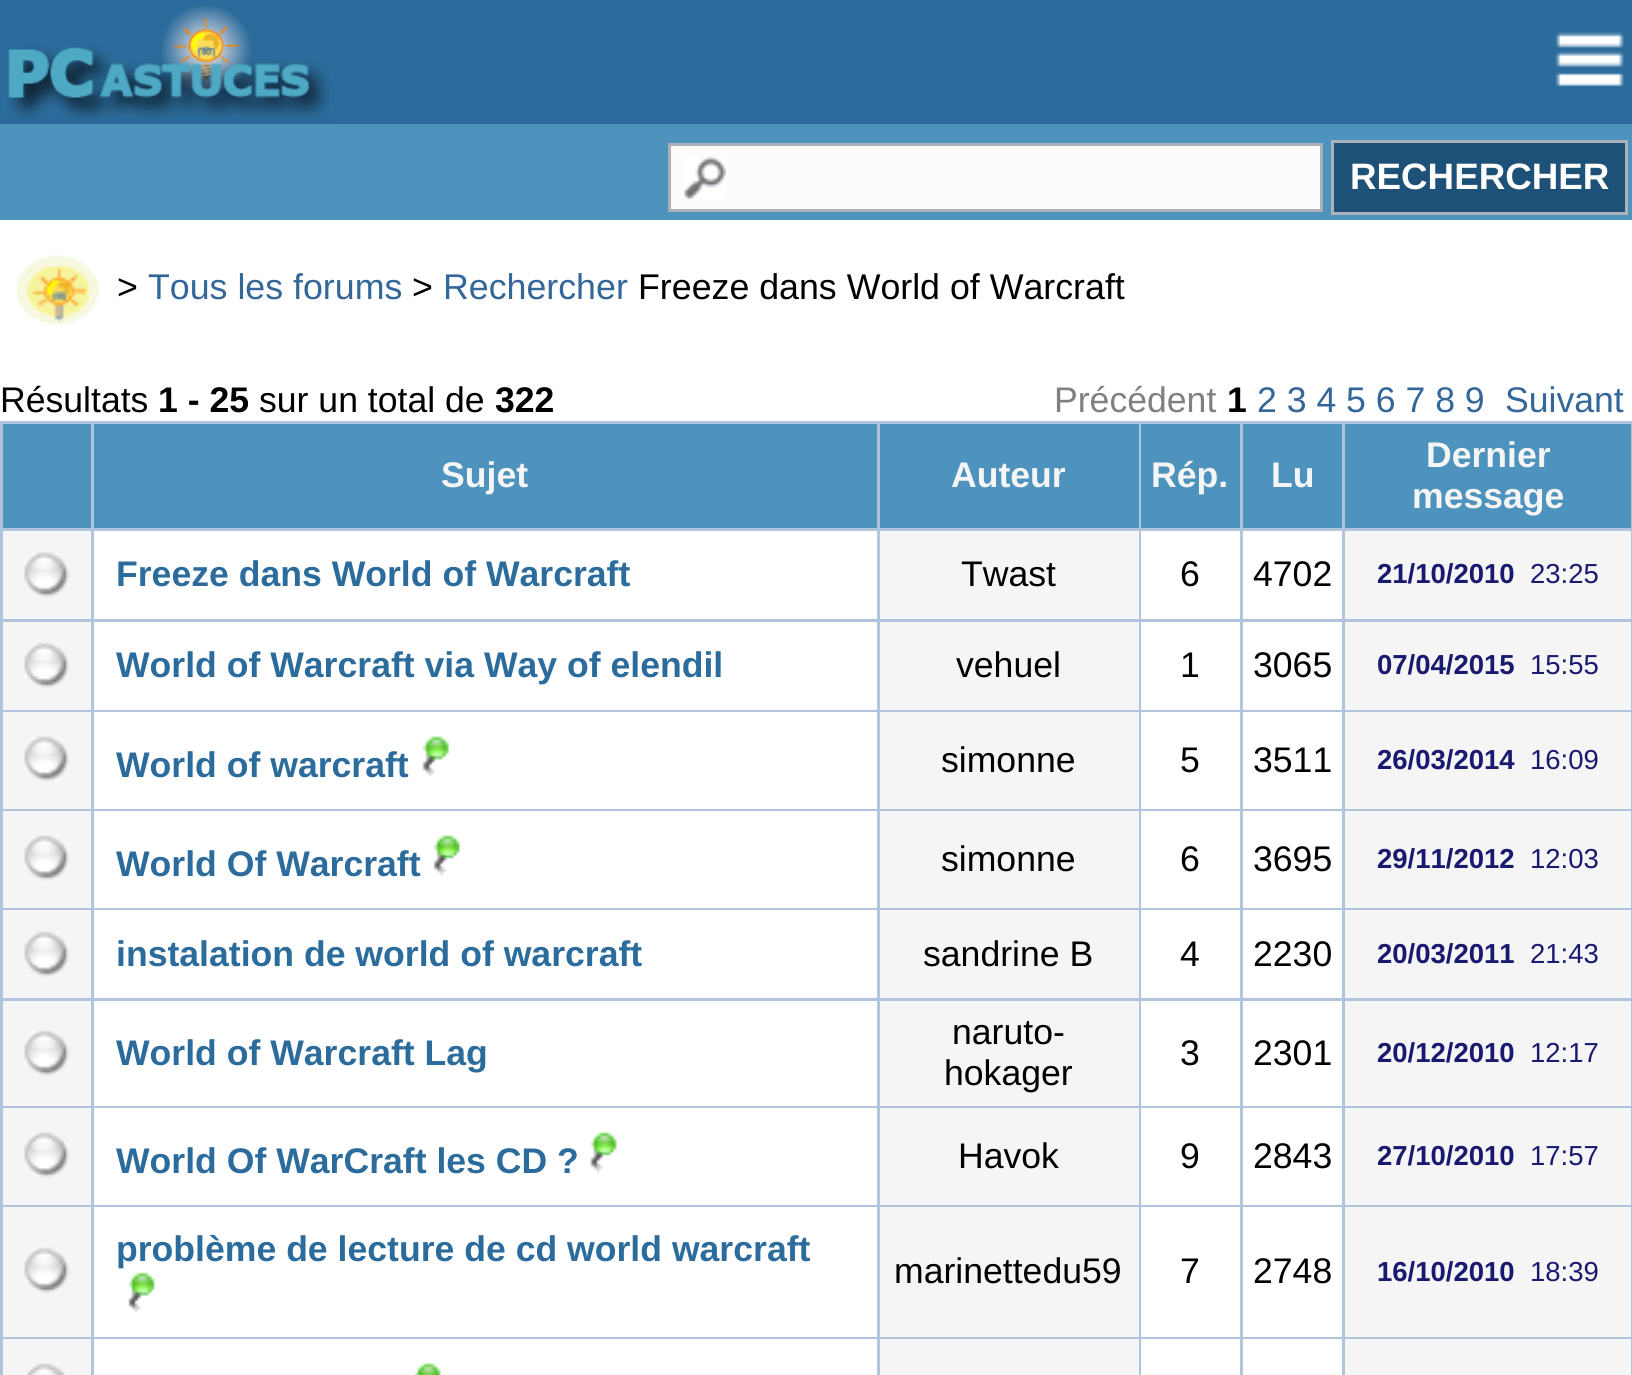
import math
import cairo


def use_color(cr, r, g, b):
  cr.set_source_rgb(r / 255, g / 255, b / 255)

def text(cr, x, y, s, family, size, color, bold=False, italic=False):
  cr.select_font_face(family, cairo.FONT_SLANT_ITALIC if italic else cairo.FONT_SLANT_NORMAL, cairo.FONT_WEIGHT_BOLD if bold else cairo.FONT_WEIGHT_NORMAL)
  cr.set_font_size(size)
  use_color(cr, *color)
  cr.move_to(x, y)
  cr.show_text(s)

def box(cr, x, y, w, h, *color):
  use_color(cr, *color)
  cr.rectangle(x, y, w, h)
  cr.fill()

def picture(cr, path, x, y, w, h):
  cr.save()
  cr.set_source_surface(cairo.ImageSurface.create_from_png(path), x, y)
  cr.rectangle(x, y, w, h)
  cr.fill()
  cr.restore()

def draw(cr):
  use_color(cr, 255, 255, 255)
  cr.paint()
  box(cr, 0, 0, 1632, 124, 44, 108, 157)
  picture(cr, "img_01.png", 6, 6, 324, 118)
  picture(cr, "img_02.png", 1555, 32, 69, 55)
  box(cr, 0, 124, 1632, 96, 78, 147, 189)
  box(cr, 671, 146, 649, 63, 252, 252, 252)
  picture(cr, "img_03.png", 684, 156, 42, 45)
  cr.rectangle(669.5, 144.5, 652, 66)
  use_color(cr, 172, 177, 183)
  cr.set_line_width(3)
  cr.stroke()
  use_color(cr, 30, 81, 120)
  cr.rectangle(1332.5, 141.5, 294, 72)
  cr.fill_preserve()
  use_color(cr, 172, 177, 183)
  cr.stroke()
  picture(cr, "img_04.png", 16, 255, 84, 71)
  box(cr, 0, 421, 1632, 954, 176, 196, 222)
  box(cr, 3, 424, 88, 104, 78, 147, 189)
  box(cr, 94, 424, 783, 104, 78, 147, 189)
  box(cr, 880, 424, 259, 104, 78, 147, 189)
  box(cr, 1141, 424, 99, 104, 78, 147, 189)
  box(cr, 1243, 424, 99, 104, 78, 147, 189)
  box(cr, 1345, 424, 286, 104, 78, 147, 189)
  box(cr, 3, 531, 88, 88, 245, 245, 245)
  picture(cr, "img_05.png", 24, 552, 46, 46)
  box(cr, 94, 531, 783, 88, 255, 255, 255)
  box(cr, 880, 531, 259, 88, 245, 245, 245)
  box(cr, 1141, 531, 99, 88, 255, 255, 255)
  box(cr, 1243, 531, 99, 88, 255, 255, 255)
  box(cr, 1345, 531, 286, 88, 245, 245, 245)
  box(cr, 3, 622, 88, 88, 245, 245, 245)
  picture(cr, "img_06.png", 24, 642, 46, 47)
  box(cr, 94, 622, 783, 88, 255, 255, 255)
  box(cr, 880, 622, 259, 88, 245, 245, 245)
  box(cr, 1141, 622, 99, 88, 255, 255, 255)
  box(cr, 1243, 622, 99, 88, 255, 255, 255)
  box(cr, 1345, 622, 286, 88, 245, 245, 245)
  box(cr, 3, 712, 88, 97, 245, 245, 245)
  picture(cr, "img_07.png", 24, 736, 46, 46)
  box(cr, 94, 712, 783, 97, 255, 255, 255)
  picture(cr, "img_08.png", 422, 736, 28, 41)
  box(cr, 880, 712, 259, 97, 245, 245, 245)
  box(cr, 1141, 712, 99, 97, 255, 255, 255)
  box(cr, 1243, 712, 99, 97, 255, 255, 255)
  box(cr, 1345, 712, 286, 97, 245, 245, 245)
  box(cr, 3, 811, 88, 97, 245, 245, 245)
  picture(cr, "img_07.png", 24, 835, 46, 46)
  box(cr, 94, 811, 783, 97, 255, 255, 255)
  picture(cr, "img_08.png", 433, 835, 28, 41)
  box(cr, 880, 811, 259, 97, 245, 245, 245)
  box(cr, 1141, 811, 99, 97, 255, 255, 255)
  box(cr, 1243, 811, 99, 97, 255, 255, 255)
  box(cr, 1345, 811, 286, 97, 245, 245, 245)
  box(cr, 3, 910, 88, 88, 245, 245, 245)
  picture(cr, "img_09.png", 24, 931, 46, 46)
  box(cr, 94, 910, 783, 88, 255, 255, 255)
  box(cr, 880, 910, 259, 88, 245, 245, 245)
  box(cr, 1141, 910, 99, 88, 255, 255, 255)
  box(cr, 1243, 910, 99, 88, 255, 255, 255)
  box(cr, 1345, 910, 286, 88, 245, 245, 245)
  box(cr, 3, 1001, 88, 105, 245, 245, 245)
  picture(cr, "img_09.png", 24, 1030, 46, 46)
  box(cr, 94, 1001, 783, 105, 255, 255, 255)
  box(cr, 880, 1001, 259, 105, 245, 245, 245)
  box(cr, 1141, 1001, 99, 105, 255, 255, 255)
  box(cr, 1243, 1001, 99, 105, 255, 255, 255)
  box(cr, 1345, 1001, 286, 105, 245, 245, 245)
  box(cr, 3, 1108, 88, 97, 245, 245, 245)
  picture(cr, "img_07.png", 24, 1132, 46, 46)
  box(cr, 94, 1108, 783, 97, 255, 255, 255)
  picture(cr, "img_10.png", 590, 1132, 27, 41)
  box(cr, 880, 1108, 259, 97, 245, 245, 245)
  box(cr, 1141, 1108, 99, 97, 255, 255, 255)
  box(cr, 1243, 1108, 99, 97, 255, 255, 255)
  box(cr, 1345, 1108, 286, 97, 245, 245, 245)
  box(cr, 3, 1207, 88, 130, 245, 245, 245)
  picture(cr, "img_06.png", 24, 1247, 46, 47)
  box(cr, 94, 1207, 783, 130, 255, 255, 255)
  picture(cr, "img_11.png", 128, 1272, 27, 41)
  box(cr, 880, 1207, 259, 130, 245, 245, 245)
  box(cr, 1141, 1207, 99, 130, 255, 255, 255)
  box(cr, 1243, 1207, 99, 130, 255, 255, 255)
  box(cr, 1345, 1207, 286, 130, 245, 245, 245)
  box(cr, 3, 1339, 88, 36, 245, 245, 245)
  picture(cr, "img_12.png", 25, 1363, 41, 12)
  box(cr, 94, 1339, 783, 36, 255, 255, 255)
  picture(cr, "img_13.png", 414, 1363, 27, 12)
  box(cr, 880, 1339, 259, 36, 245, 245, 245)
  box(cr, 1141, 1339, 99, 36, 255, 255, 255)
  box(cr, 1243, 1339, 99, 36, 255, 255, 255)
  box(cr, 1345, 1339, 286, 36, 245, 245, 245)
  text(cr, 1350, 189, "RECHERCHER", "Liberation Sans", 36.75, (255, 255, 255), bold=True)
  text(cr, 117, 299, ">", "Liberation Sans", 35.75, (0, 0, 0))
  text(cr, 148, 299, "Tous les forums", "Liberation Sans", 35.75, (51, 102, 153))
  text(cr, 412, 299, ">", "Liberation Sans", 35.75, (0, 0, 0))
  text(cr, 443, 299, "Rechercher", "Liberation Sans", 35.75, (51, 102, 153))
  text(cr, 638, 299, "Freeze dans World of Warcraft", "Liberation Sans", 35.75, (0, 0, 0))
  text(cr, 0, 412, "Résultats", "Liberation Sans", 35.6, (0, 0, 0))
  text(cr, 158, 412, "1 - 25", "Liberation Sans", 35.6, (0, 0, 0), bold=True)
  text(cr, 259, 412, "sur un total de", "Liberation Sans", 35.6, (0, 0, 0))
  text(cr, 495, 412, "322", "Liberation Sans", 35.6, (0, 0, 0), bold=True)
  text(cr, 1054, 412, "Précédent", "Liberation Sans", 35.6, (128, 128, 128))
  text(cr, 1227, 412, "1", "Liberation Sans", 35.6, (0, 0, 0), bold=True)
  text(cr, 1257, 412, "2 3 4 5 6 7 8 9", "Liberation Sans", 35.6, (51, 102, 153))
  text(cr, 1505, 412, "Suivant", "Liberation Sans", 35.6, (51, 102, 153))
  text(cr, 441, 487, "Sujet", "Liberation Sans", 35.6, (245, 245, 245), bold=True)
  text(cr, 951, 487, "Auteur", "Liberation Sans", 35.6, (245, 245, 245), bold=True)
  text(cr, 1151, 487, "Rép.", "Liberation Sans", 35.6, (245, 245, 245), bold=True)
  text(cr, 1271, 487, "Lu", "Liberation Sans", 35.6, (245, 245, 245), bold=True)
  text(cr, 1426, 467, "Dernier", "Liberation Sans", 35.6, (245, 245, 245), bold=True)
  text(cr, 1412, 508, "message", "Liberation Sans", 35.6, (245, 245, 245), bold=True)
  text(cr, 116, 586, "Freeze dans World of Warcraft", "Liberation Sans", 35.6, (44, 108, 157), bold=True)
  text(cr, 961, 586, "Twast", "Liberation Sans", 35.6, (0, 0, 0))
  text(cr, 1180, 586, "6", "Liberation Sans", 35.6, (0, 0, 0))
  text(cr, 1253, 586, "4702", "Liberation Sans", 35.6, (0, 0, 0))
  text(cr, 1377, 583, "21/10/2010", "Liberation Sans", 27.5, (25, 25, 112), bold=True)
  text(cr, 1530, 583, "23:25", "Liberation Sans", 27.5, (25, 25, 112))
  text(cr, 116, 677, "World of Warcraft via Way of elendil", "Liberation Sans", 35.6, (44, 108, 157), bold=True)
  text(cr, 956, 677, "vehuel", "Liberation Sans", 35.6, (0, 0, 0))
  text(cr, 1180, 677, "1", "Liberation Sans", 35.6, (0, 0, 0))
  text(cr, 1253, 677, "3065", "Liberation Sans", 35.6, (0, 0, 0))
  text(cr, 1377, 674, "07/04/2015", "Liberation Sans", 27.5, (25, 25, 112), bold=True)
  text(cr, 1530, 674, "15:55", "Liberation Sans", 27.5, (25, 25, 112))
  text(cr, 116, 777, "World of warcraft", "Liberation Sans", 35.6, (44, 108, 157), bold=True)
  text(cr, 941, 772, "simonne", "Liberation Sans", 35.6, (0, 0, 0))
  text(cr, 1180, 772, "5", "Liberation Sans", 35.6, (0, 0, 0))
  text(cr, 1253, 772, "3511", "Liberation Sans", 35.6, (0, 0, 0))
  text(cr, 1377, 769, "26/03/2014", "Liberation Sans", 27.5, (25, 25, 112), bold=True)
  text(cr, 1530, 769, "16:09", "Liberation Sans", 27.5, (25, 25, 112))
  text(cr, 116, 876, "World Of Warcraft", "Liberation Sans", 35.6, (44, 108, 157), bold=True)
  text(cr, 941, 871, "simonne", "Liberation Sans", 35.6, (0, 0, 0))
  text(cr, 1180, 871, "6", "Liberation Sans", 35.6, (0, 0, 0))
  text(cr, 1253, 871, "3695", "Liberation Sans", 35.6, (0, 0, 0))
  text(cr, 1377, 868, "29/11/2012", "Liberation Sans", 27.5, (25, 25, 112), bold=True)
  text(cr, 1530, 868, "12:03", "Liberation Sans", 27.5, (25, 25, 112))
  text(cr, 116, 966, "instalation de world of warcraft", "Liberation Sans", 35.6, (44, 108, 157), bold=True)
  text(cr, 923, 966, "sandrine B", "Liberation Sans", 35.6, (0, 0, 0))
  text(cr, 1180, 966, "4", "Liberation Sans", 35.6, (0, 0, 0))
  text(cr, 1253, 966, "2230", "Liberation Sans", 35.6, (0, 0, 0))
  text(cr, 1377, 963, "20/03/2011", "Liberation Sans", 27.5, (25, 25, 112), bold=True)
  text(cr, 1530, 963, "21:43", "Liberation Sans", 27.5, (25, 25, 112))
  text(cr, 116, 1065, "World of Warcraft Lag", "Liberation Sans", 35.6, (44, 108, 157), bold=True)
  text(cr, 952, 1044, "naruto-", "Liberation Sans", 35.6, (0, 0, 0))
  text(cr, 944, 1085, "hokager", "Liberation Sans", 35.6, (0, 0, 0))
  text(cr, 1180, 1065, "3", "Liberation Sans", 35.6, (0, 0, 0))
  text(cr, 1253, 1065, "2301", "Liberation Sans", 35.6, (0, 0, 0))
  text(cr, 1377, 1062, "20/12/2010", "Liberation Sans", 27.5, (25, 25, 112), bold=True)
  text(cr, 1530, 1062, "12:17", "Liberation Sans", 27.5, (25, 25, 112))
  text(cr, 116, 1173, "World Of WarCraft les CD ?", "Liberation Sans", 35.6, (44, 108, 157), bold=True)
  text(cr, 958, 1168, "Havok", "Liberation Sans", 35.6, (0, 0, 0))
  text(cr, 1180, 1168, "9", "Liberation Sans", 35.6, (0, 0, 0))
  text(cr, 1253, 1168, "2843", "Liberation Sans", 35.6, (0, 0, 0))
  text(cr, 1377, 1165, "27/10/2010", "Liberation Sans", 27.5, (25, 25, 112), bold=True)
  text(cr, 1530, 1165, "17:57", "Liberation Sans", 27.5, (25, 25, 112))
  text(cr, 116, 1261, "problème de lecture de cd world warcraft", "Liberation Sans", 35.6, (44, 108, 157), bold=True)
  text(cr, 894, 1283, "marinettedu59", "Liberation Sans", 35.6, (0, 0, 0))
  text(cr, 1180, 1283, "7", "Liberation Sans", 35.6, (0, 0, 0))
  text(cr, 1253, 1283, "2748", "Liberation Sans", 35.6, (0, 0, 0))
  text(cr, 1377, 1281, "16/10/2010", "Liberation Sans", 27.5, (25, 25, 112), bold=True)
  text(cr, 1530, 1281, "18:39", "Liberation Sans", 27.5, (25, 25, 112))


surface = cairo.ImageSurface(cairo.FORMAT_RGB24, 1632, 1375)
cr = cairo.Context(surface)
options = cairo.FontOptions()
options.set_hint_metrics(cairo.HINT_METRICS_OFF)
options.set_hint_style(cairo.HINT_STYLE_NONE)
cr.set_font_options(options)
cr.set_miter_limit(4)
draw(cr)
surface.write_to_png("out.png")
